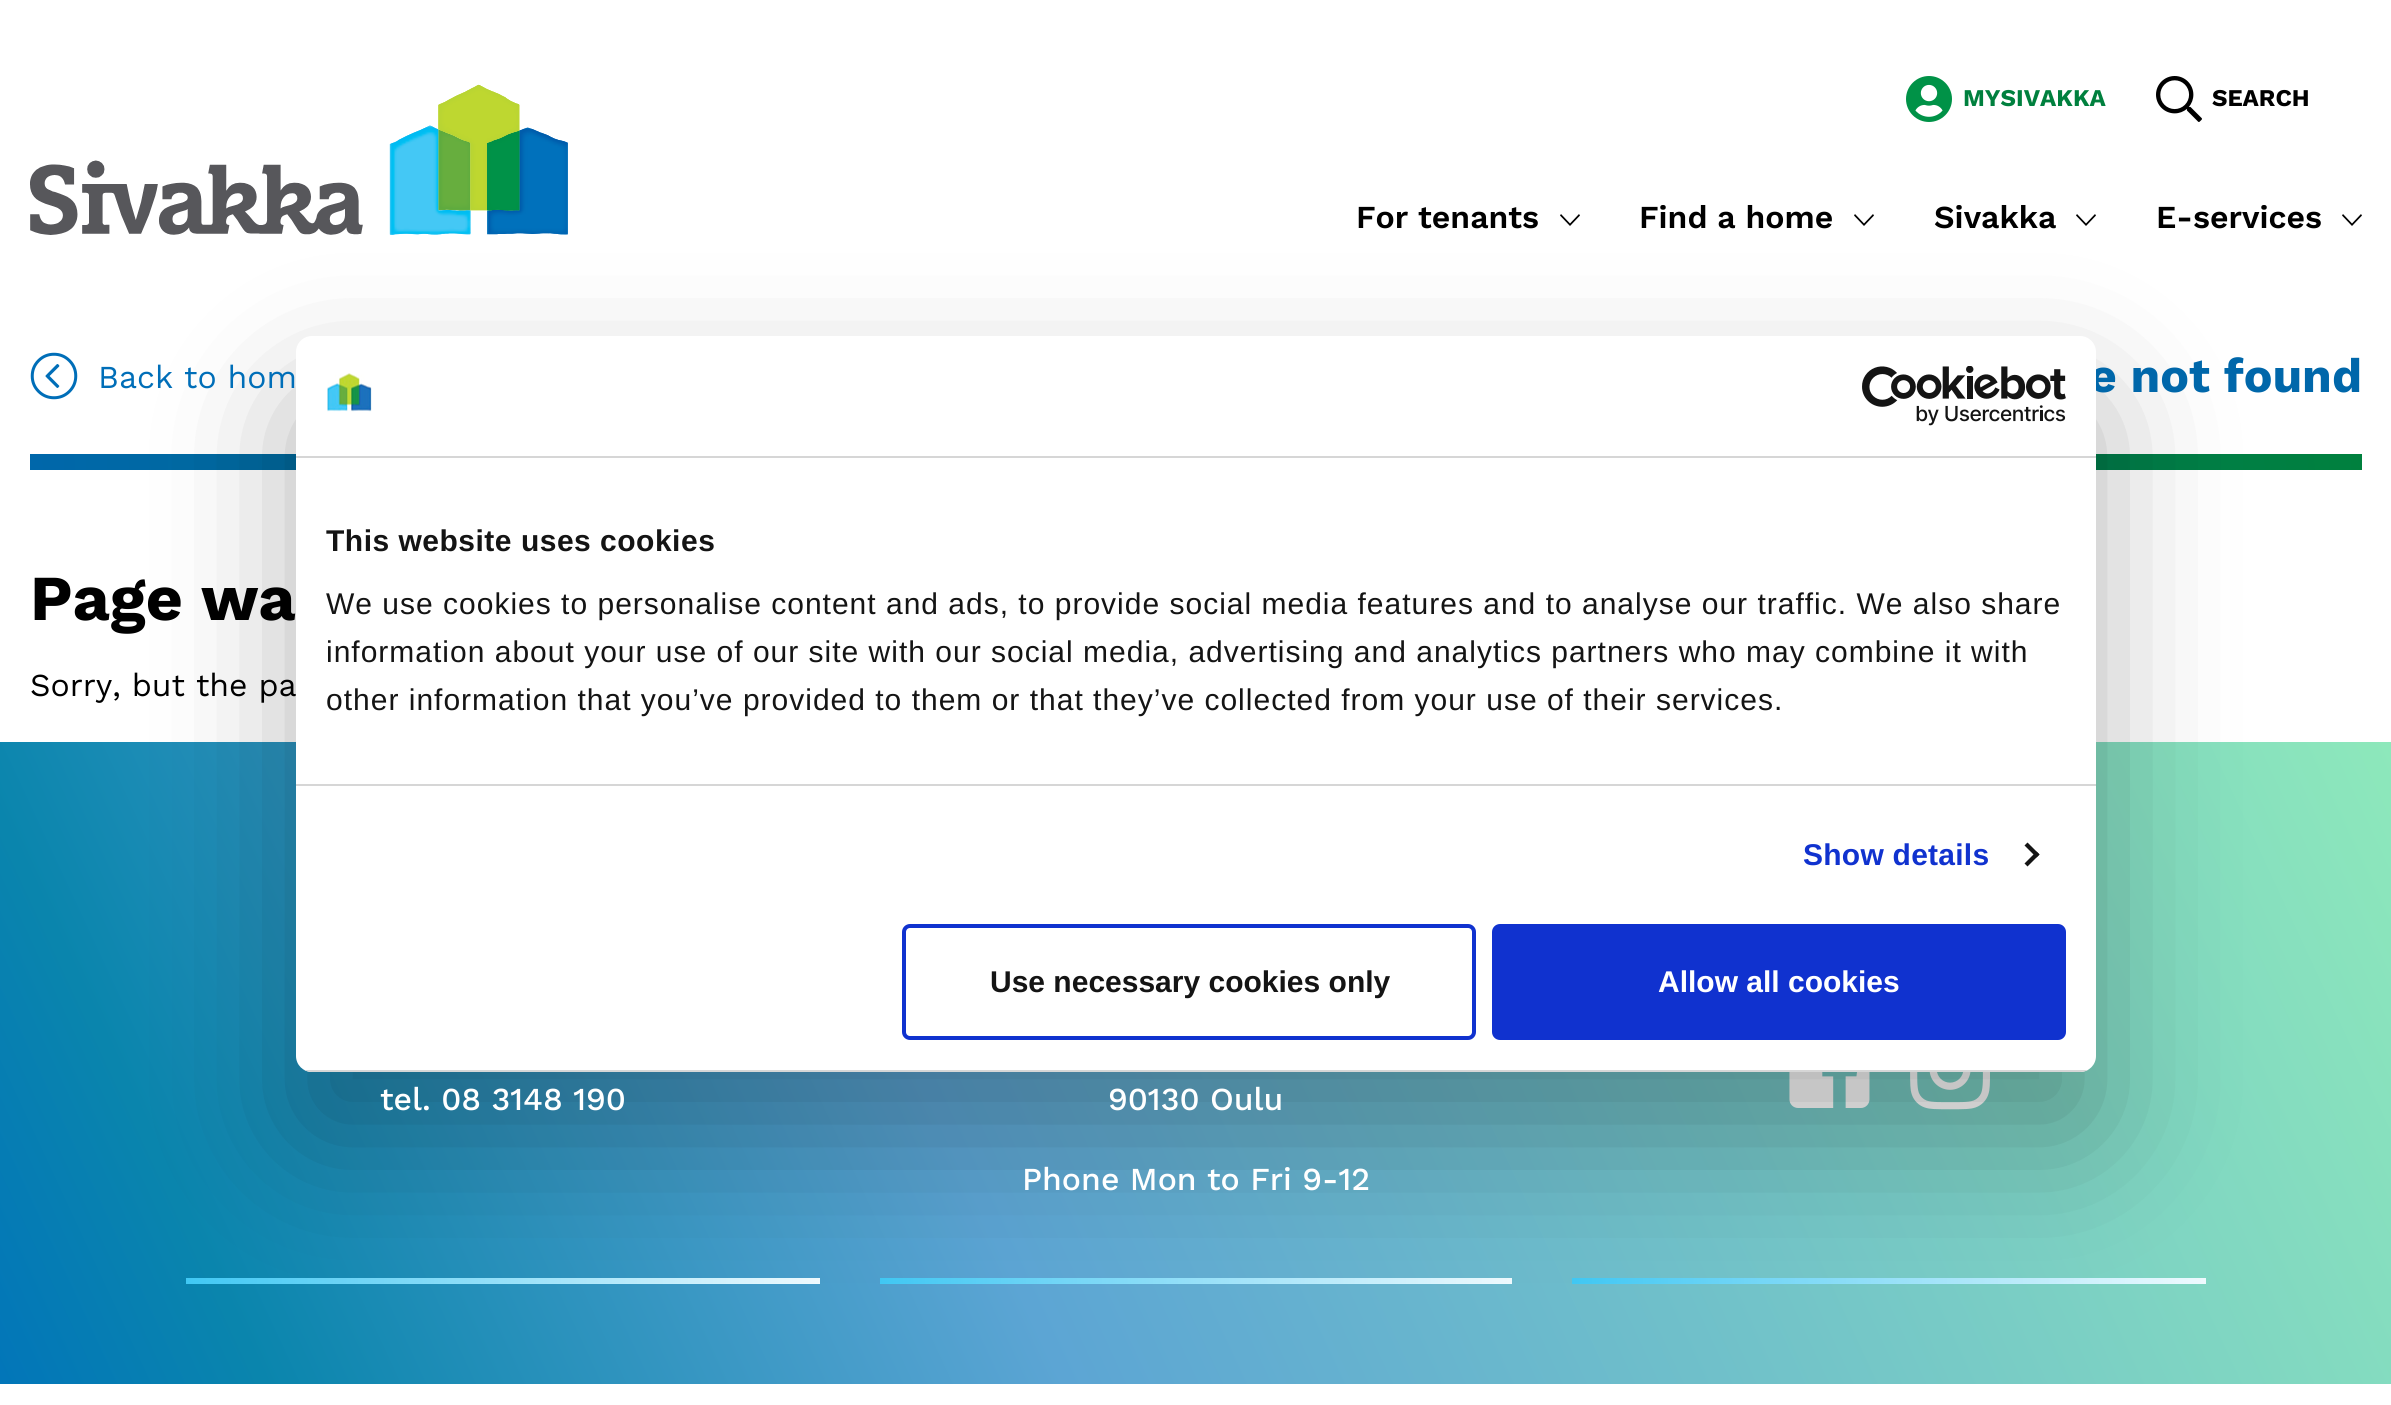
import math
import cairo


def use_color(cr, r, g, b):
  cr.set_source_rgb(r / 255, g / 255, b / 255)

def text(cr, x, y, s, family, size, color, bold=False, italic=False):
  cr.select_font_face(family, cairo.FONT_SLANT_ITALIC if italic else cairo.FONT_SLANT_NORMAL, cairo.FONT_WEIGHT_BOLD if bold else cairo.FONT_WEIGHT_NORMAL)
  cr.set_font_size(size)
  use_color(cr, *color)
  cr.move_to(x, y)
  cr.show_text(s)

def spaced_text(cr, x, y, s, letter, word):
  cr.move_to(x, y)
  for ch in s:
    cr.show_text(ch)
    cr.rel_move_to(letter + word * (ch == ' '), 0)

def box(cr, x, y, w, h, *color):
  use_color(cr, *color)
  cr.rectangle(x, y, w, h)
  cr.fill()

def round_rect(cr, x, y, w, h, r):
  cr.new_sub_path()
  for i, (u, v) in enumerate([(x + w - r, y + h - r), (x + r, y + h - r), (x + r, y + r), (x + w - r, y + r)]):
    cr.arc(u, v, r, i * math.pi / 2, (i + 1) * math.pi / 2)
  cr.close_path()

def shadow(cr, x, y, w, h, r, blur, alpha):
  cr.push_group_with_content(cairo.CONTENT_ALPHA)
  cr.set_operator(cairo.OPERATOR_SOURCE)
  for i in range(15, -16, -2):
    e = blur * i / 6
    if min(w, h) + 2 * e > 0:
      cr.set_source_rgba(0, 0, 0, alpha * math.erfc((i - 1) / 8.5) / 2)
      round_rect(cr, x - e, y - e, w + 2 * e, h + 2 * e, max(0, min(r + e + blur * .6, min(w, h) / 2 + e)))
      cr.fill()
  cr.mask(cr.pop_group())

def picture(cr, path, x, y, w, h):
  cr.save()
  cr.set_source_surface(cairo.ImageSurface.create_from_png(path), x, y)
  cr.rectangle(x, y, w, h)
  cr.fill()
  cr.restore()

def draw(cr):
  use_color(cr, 255, 255, 255)
  cr.paint()
  picture(cr, "img_01.png", 30, 84, 538, 151)
  picture(cr, "img_02.png", 1906, 76, 46, 46)
  picture(cr, "img_03.png", 2156, 76, 46, 46)
  use_color(cr, 0, 0, 0)
  cr.set_fill_rule(cairo.FILL_RULE_EVEN_ODD)
  cr.new_path()
  cr.move_to(1579, 214)
  cr.line_to(1580, 215.5)
  cr.line_to(1570, 226)
  cr.line_to(1560, 215.5)
  cr.line_to(1561, 214)
  cr.line_to(1570, 223.5)
  cr.close_path()
  cr.fill()
  cr.new_path()
  cr.move_to(1873, 214)
  cr.line_to(1874, 215.5)
  cr.line_to(1864, 226)
  cr.line_to(1854, 215.5)
  cr.line_to(1855, 214)
  cr.line_to(1864, 223.5)
  cr.close_path()
  cr.fill()
  cr.new_path()
  cr.move_to(2095, 214)
  cr.line_to(2096, 215.5)
  cr.line_to(2086, 226)
  cr.line_to(2076, 215.5)
  cr.line_to(2077, 214)
  cr.line_to(2086, 223.5)
  cr.close_path()
  cr.fill()
  cr.new_path()
  cr.move_to(2361, 214)
  cr.line_to(2362, 215.5)
  cr.line_to(2352, 226)
  cr.line_to(2342, 215.5)
  cr.line_to(2343, 214)
  cr.line_to(2352, 223.5)
  cr.close_path()
  cr.fill()
  picture(cr, "img_04.png", 30, 352, 48, 48)
  gradient = cairo.LinearGradient(2359, 401, 33, 523)
  gradient.add_color_stop_rgba(0, 0, 0.502, 0.243, 1)
  gradient.add_color_stop_rgba(1, 0, 0.404, 0.667, 1)
  cr.set_source(gradient)
  cr.rectangle(30, 454, 2332, 16)
  cr.fill()
  gradient = cairo.LinearGradient(2328, 604, 64, 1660)
  gradient.add_color_stop_rgba(0, 0.553, 0.91, 0.733, 1)
  gradient.add_color_stop_rgba(0.59, 0.361, 0.647, 0.831, 1)
  gradient.add_color_stop_rgba(0.88, 0.039, 0.522, 0.678, 1)
  gradient.add_color_stop_rgba(1, 0, 0.447, 0.737, 1)
  cr.set_source(gradient)
  cr.rectangle(0, 742, 2391, 642)
  cr.fill()
  gradient = cairo.LinearGradient(820, 1281, 186, 1281)
  gradient.add_color_stop_rgba(0, 0.937, 0.98, 0.996, 1)
  gradient.add_color_stop_rgba(1, 0.251, 0.784, 0.957, 1)
  cr.set_source(gradient)
  cr.rectangle(186, 1278, 634, 6)
  cr.fill()
  gradient = cairo.LinearGradient(1512, 1281, 880, 1281)
  gradient.add_color_stop_rgba(0, 0.937, 0.98, 0.996, 1)
  gradient.add_color_stop_rgba(1, 0.251, 0.784, 0.957, 1)
  cr.set_source(gradient)
  cr.rectangle(880, 1278, 632, 6)
  cr.fill()
  picture(cr, "img_05.png", 1789, 1072, 81, 36)
  picture(cr, "img_06.png", 1910, 1072, 80, 38)
  gradient = cairo.LinearGradient(2206, 1281, 1572, 1281)
  gradient.add_color_stop_rgba(0, 0.937, 0.98, 0.996, 1)
  gradient.add_color_stop_rgba(1, 0.251, 0.784, 0.957, 1)
  cr.set_source(gradient)
  cr.rectangle(1572, 1278, 634, 6)
  cr.fill()
  use_color(cr, 0, 0, 0)
  shadow(cr, 296, 400, 1800, 736, 16, 68, 0.3)
  text(cr, 1963, 106, "MYSIVAKKA", "Work Sans", 24, (0, 128, 62), bold=True)
  text(cr, 2212, 106, "SEARCH", "Work Sans", 24, (0, 0, 0), bold=True)
  text(cr, 1356, 228, "For tenants", "Work Sans SemiBold", 32, (0, 0, 0))
  text(cr, 1639, 228, "Find a home", "Work Sans SemiBold", 32, (0, 0, 0))
  text(cr, 1934, 228, "Sivakka", "Work Sans SemiBold", 32, (0, 0, 0))
  text(cr, 2156, 228, "E-services", "Work Sans SemiBold", 32, (0, 0, 0))
  text(cr, 98, 388, "Back to hom", "Work Sans", 32, (0, 110, 184))
  text(cr, 2089, 392, "e not found", "Work Sans", 48, (0, 103, 170), bold=True)
  text(cr, 30, 620, "Page wa", "Work Sans", 64, (0, 0, 0), bold=True)
  text(cr, 30, 696, "Sorry, but the pa", "Work Sans", 32, (0, 0, 0))
  text(cr, 380, 1110, "tel. 08 3148 190", "Work Sans Medium", 32, (255, 255, 255))
  text(cr, 1108, 1110, "90130 Oulu", "Work Sans Medium", 32, (255, 255, 255))
  text(cr, 1022, 1190, "Phone Mon to Fri 9-12", "Work Sans Medium", 32, (255, 255, 255))
  round_rect(cr, 296, 336, 1800, 736, 16)
  cr.fill()
  box(cr, 296, 456, 1800, 2, 214, 214, 214)
  picture(cr, "img_07.png", 327, 373, 45, 39)
  picture(cr, "img_08.png", 1862, 366, 204, 60)
  box(cr, 296, 784, 1800, 2, 214, 214, 214)
  cr.select_font_face("Liberation Sans", cairo.FONT_SLANT_NORMAL, cairo.FONT_WEIGHT_BOLD)
  cr.set_font_size(30)
  use_color(cr, 20, 20, 20)
  spaced_text(cr, 326, 551, "This website uses cookies", 0.5, 0)
  cr.select_font_face("Liberation Sans")
  spaced_text(cr, 326, 614, "We use cookies to personalise content and ads, to provide social media features and to analyse our traffic. We also share", 1, 0)
  spaced_text(cr, 326, 662, "information about your use of our site with our social media, advertising and analytics partners who may combine it with", 1, 0)
  spaced_text(cr, 326, 710, "other information that you’ve provided to them or that they’ve collected from your use of their services.", 1, 0)
  cr.select_font_face("Liberation Sans", cairo.FONT_SLANT_NORMAL, cairo.FONT_WEIGHT_BOLD)
  use_color(cr, 16, 50, 207)
  spaced_text(cr, 1803, 865, "Show details", 0.25, 0)
  use_color(cr, 20, 20, 20)
  cr.set_fill_rule(cairo.FILL_RULE_WINDING)
  cr.new_path()
  cr.move_to(2027.5, 842.5)
  cr.line_to(2039.5, 854.5)
  cr.line_to(2036.5, 857.5)
  cr.line_to(2024.5, 845.5)
  cr.close_path()
  cr.fill()
  cr.new_path()
  cr.move_to(2036.5, 851.5)
  cr.line_to(2039.5, 854.5)
  cr.line_to(2027.5, 866.5)
  cr.line_to(2024.5, 863.5)
  cr.close_path()
  cr.fill()
  cr.save()
  round_rect(cr, 296, 336, 1800, 736, 16)
  cr.clip()
  box(cr, 296, 1070, 1800, 2, 214, 214, 214)
  cr.restore()
  round_rect(cr, 904, 926, 570, 112, 6)
  use_color(cr, 16, 50, 207)
  cr.set_line_width(4)
  cr.stroke()
  text(cr, 990, 992, "Use necessary cookies only", "Liberation Sans", 30, (20, 20, 20), bold=True)
  use_color(cr, 16, 50, 207)
  round_rect(cr, 1494, 926, 570, 112, 6)
  cr.fill_preserve()
  cr.stroke()
  text(cr, 1658, 992, "Allow all cookies", "Liberation Sans", 30, (255, 255, 255), bold=True)


surface = cairo.ImageSurface(cairo.FORMAT_RGB24, 2391, 1405)
cr = cairo.Context(surface)
options = cairo.FontOptions()
options.set_hint_metrics(cairo.HINT_METRICS_OFF)
options.set_hint_style(cairo.HINT_STYLE_NONE)
cr.set_font_options(options)
cr.set_miter_limit(4)
draw(cr)
surface.write_to_png("out.png")
